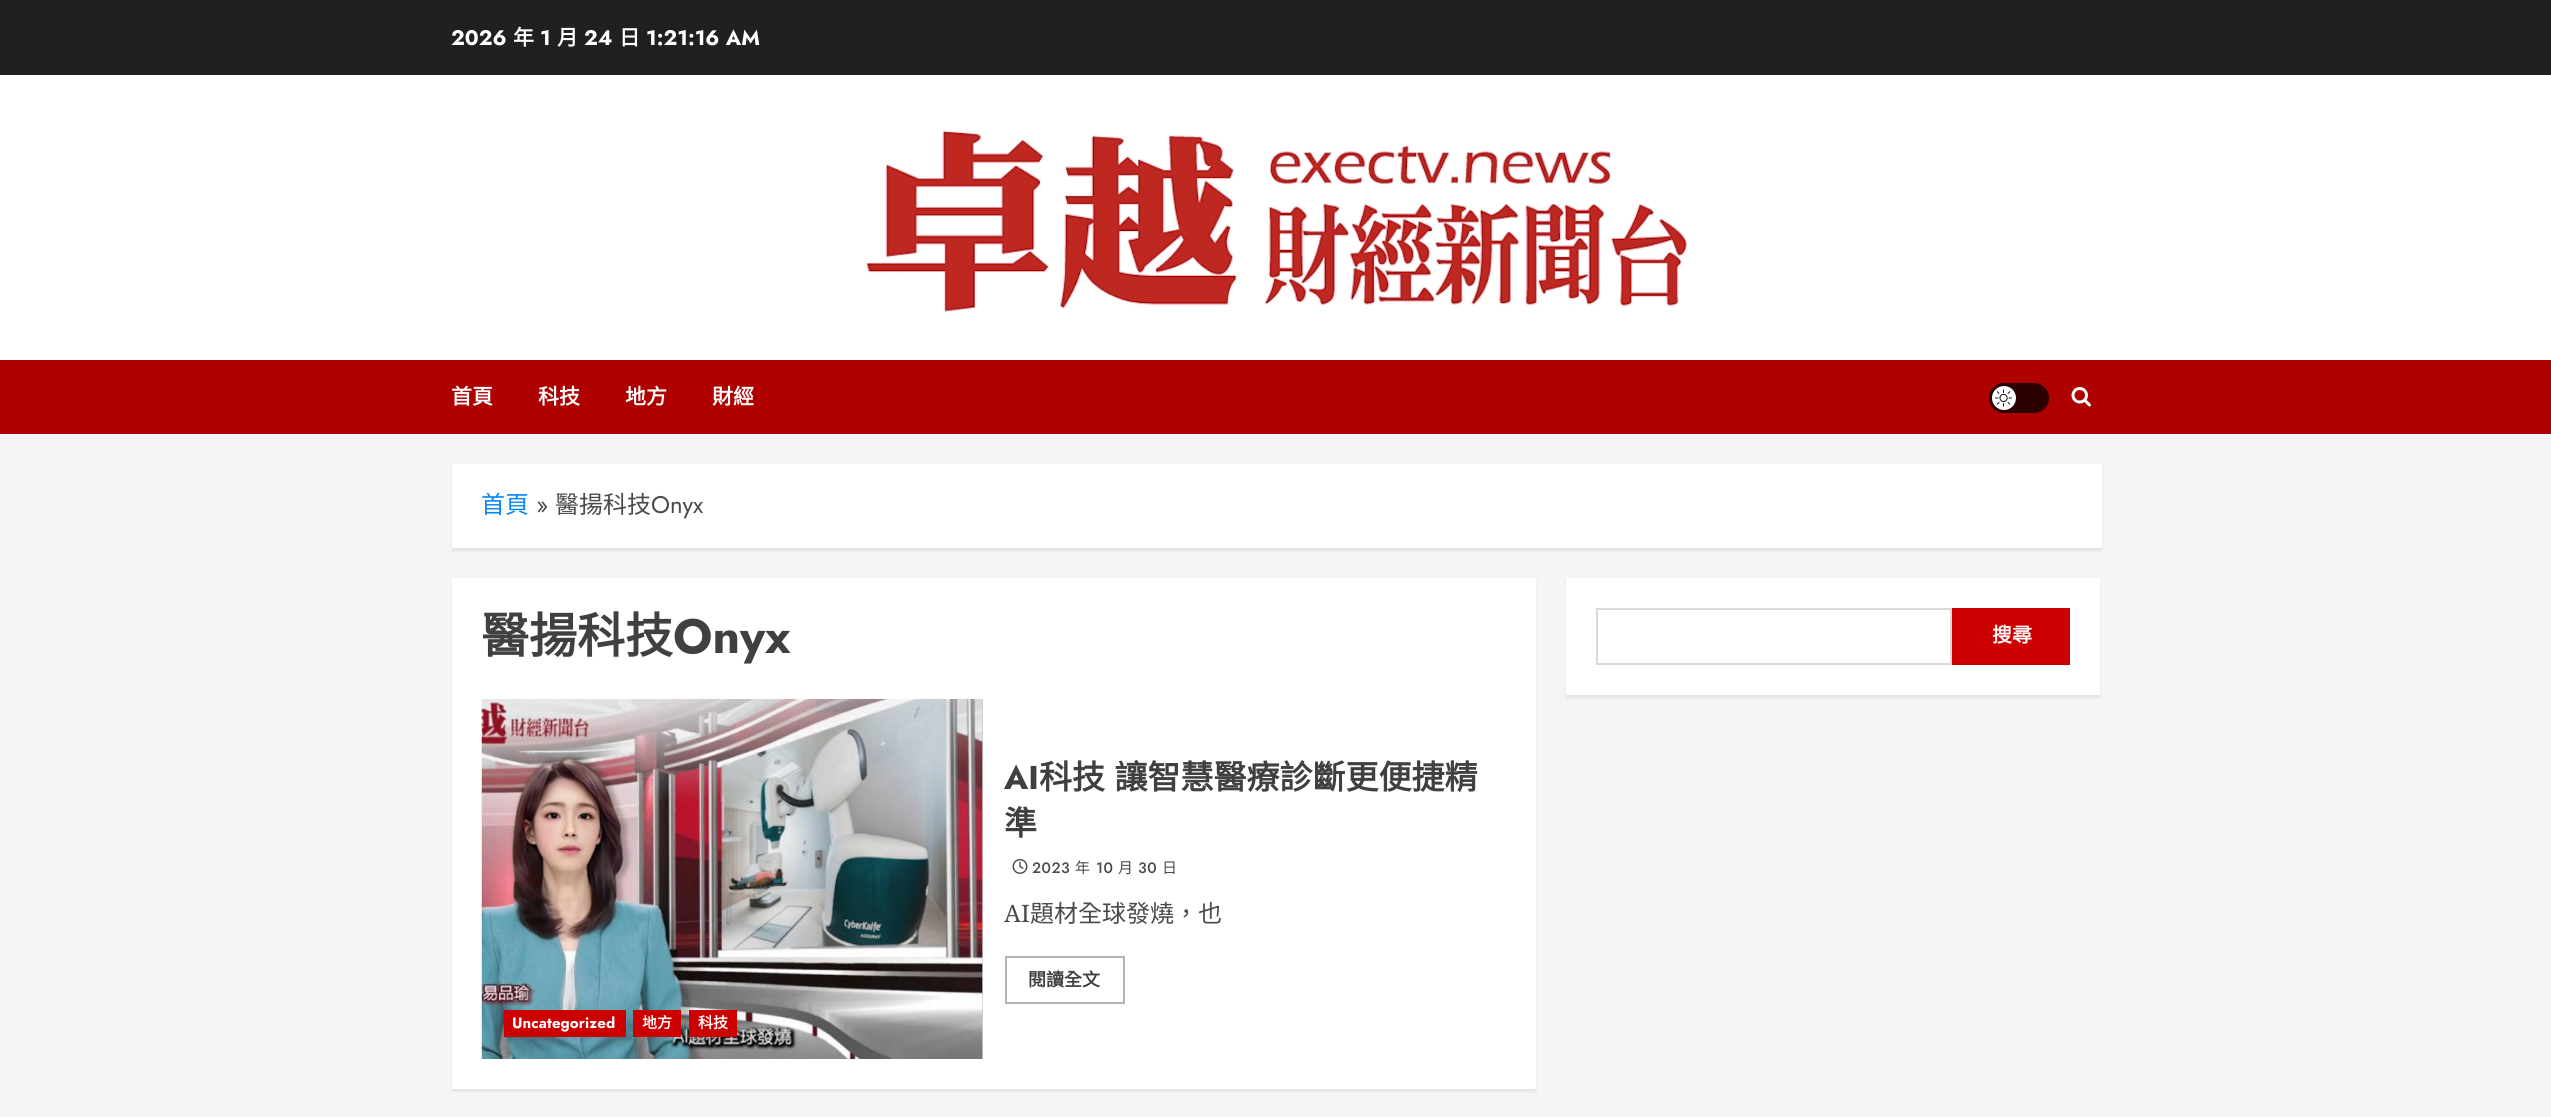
import math
import cairo


def use_color(cr, r, g, b):
  cr.set_source_rgb(r / 255, g / 255, b / 255)

def text(cr, x, y, s, family, size, color, bold=False, italic=False):
  cr.select_font_face(family, cairo.FONT_SLANT_ITALIC if italic else cairo.FONT_SLANT_NORMAL, cairo.FONT_WEIGHT_BOLD if bold else cairo.FONT_WEIGHT_NORMAL)
  cr.set_font_size(size)
  use_color(cr, *color)
  cr.move_to(x, y)
  cr.show_text(s)

def spaced_text(cr, x, y, s, letter, word):
  cr.move_to(x, y)
  for ch in s:
    cr.show_text(ch)
    cr.rel_move_to(letter + word * (ch == ' '), 0)

def box(cr, x, y, w, h, *color):
  use_color(cr, *color)
  cr.rectangle(x, y, w, h)
  cr.fill()

def round_rect(cr, x, y, w, h, r):
  cr.new_sub_path()
  for i, (u, v) in enumerate([(x + w - r, y + h - r), (x + r, y + h - r), (x + r, y + r), (x + w - r, y + r)]):
    cr.arc(u, v, r, i * math.pi / 2, (i + 1) * math.pi / 2)
  cr.close_path()

def shadow(cr, x, y, w, h, r, blur, alpha):
  cr.push_group_with_content(cairo.CONTENT_ALPHA)
  cr.set_operator(cairo.OPERATOR_SOURCE)
  for i in range(15, -16, -2):
    e = blur * i / 6
    if min(w, h) + 2 * e > 0:
      cr.set_source_rgba(0, 0, 0, alpha * math.erfc((i - 1) / 8.5) / 2)
      round_rect(cr, x - e, y - e, w + 2 * e, h + 2 * e, max(0, min(r + e + blur * .6, min(w, h) / 2 + e)))
      cr.fill()
  cr.mask(cr.pop_group())

def picture(cr, path, x, y, w, h):
  cr.save()
  cr.set_source_surface(cairo.ImageSurface.create_from_png(path), x, y)
  cr.rectangle(x, y, w, h)
  cr.fill()
  cr.restore()

def draw(cr):
  use_color(cr, 245, 245, 245)
  cr.paint()
  box(cr, 0, 75, 2551, 285, 255, 255, 255)
  box(cr, 0, 0, 2551, 75, 32, 32, 32)
  picture(cr, "img_01.png", 865, 130, 823, 182)
  box(cr, 0, 360, 2551, 74, 175, 0, 0)
  use_color(cr, 44, 0, 0)
  round_rect(cr, 1989, 383, 60, 30, 15)
  cr.fill()
  use_color(cr, 255, 255, 255)
  cr.arc(2004, 398, 12, 0, 2 * math.pi)
  cr.fill()
  picture(cr, "img_02.png", 1995, 389, 17, 18)
  picture(cr, "img_03.png", 2071, 387, 20, 20)
  use_color(cr, 0, 0, 0)
  shadow(cr, 452, 467, 1650, 84, 0, 1.5, 0.08)
  box(cr, 452, 464, 1650, 84, 255, 255, 255)
  use_color(cr, 0, 0, 0)
  shadow(cr, 452, 581, 1084, 511, 0, 1.5, 0.08)
  box(cr, 452, 578, 1084, 511, 255, 255, 255)
  picture(cr, "img_04.png", 1012, 859, 16, 15)
  cr.rectangle(1006, 957, 118, 46)
  use_color(cr, 179, 179, 179)
  cr.stroke()
  box(cr, 982, 699, 1, 360, 204, 204, 204)
  picture(cr, "img_05.png", 481, 699, 502, 360)
  box(cr, 504, 1010, 122, 27, 204, 0, 0)
  box(cr, 633, 1010, 48, 27, 204, 0, 0)
  box(cr, 689, 1010, 48, 27, 204, 0, 0)
  use_color(cr, 0, 0, 0)
  shadow(cr, 1566, 581, 534, 117, 0, 1.5, 0.08)
  box(cr, 1566, 578, 534, 117, 255, 255, 255)
  cr.rectangle(1597, 609, 354, 55)
  use_color(cr, 217, 217, 217)
  cr.stroke()
  box(cr, 1952, 608, 118, 57, 204, 0, 0)
  text(cr, 451, 45, "2026", "Jost", 21, (255, 255, 255), bold=True)
  text(cr, 513, 45, "年", "Noto Sans CJK TC", 21, (255, 255, 255), bold=True)
  text(cr, 540, 45, "1", "Jost", 21, (255, 255, 255), bold=True)
  text(cr, 557, 45, "月", "Noto Sans CJK TC", 21, (255, 255, 255), bold=True)
  text(cr, 584, 45, "24", "Jost", 21, (255, 255, 255), bold=True)
  text(cr, 619, 45, "日", "Noto Sans CJK TC", 21, (255, 255, 255), bold=True)
  text(cr, 646, 45, "1:21:16 AM", "Jost", 21, (255, 255, 255), bold=True)
  text(cr, 451, 404, "首頁", "Noto Sans CJK TC", 21, (255, 255, 255), bold=True)
  text(cr, 538, 404, "科技", "Noto Sans CJK TC", 21, (255, 255, 255), bold=True)
  text(cr, 625, 404, "地方", "Noto Sans CJK TC", 21, (255, 255, 255), bold=True)
  text(cr, 712, 404, "財經", "Noto Sans CJK TC", 21, (255, 255, 255), bold=True)
  text(cr, 481, 513, "首頁", "Noto Sans CJK TC", 24, (9, 135, 245))
  text(cr, 536, 513, "»", "Jost", 24, (74, 74, 74))
  text(cr, 555, 513, "醫揚科技", "Noto Sans CJK TC", 24, (74, 74, 74))
  text(cr, 651, 513, "Onyx", "Jost", 24, (74, 74, 74))
  text(cr, 481, 653, "醫揚科技", "Noto Sans CJK TC", 48, (64, 64, 64), bold=True)
  text(cr, 673, 653, "Onyx", "Jost", 48, (64, 64, 64), bold=True)
  text(cr, 1004, 789, "AI", "Jost", 33, (64, 64, 64), bold=True)
  cr.select_font_face("Noto Sans CJK TC", cairo.FONT_SLANT_NORMAL, cairo.FONT_WEIGHT_BOLD)
  spaced_text(cr, 1039, 789, "科技 讓智慧醫療診斷更便捷精", 0, 2)
  text(cr, 1004, 835, "準", "Noto Sans CJK TC", 33, (64, 64, 64), bold=True)
  cr.select_font_face("Jost Medium")
  cr.set_font_size(15)
  use_color(cr, 74, 74, 74)
  spaced_text(cr, 1032, 873, "2023", 0.5, 0)
  cr.select_font_face("Noto Sans CJK TC")
  spaced_text(cr, 1075, 873, "年", 0.5, 0)
  cr.select_font_face("Jost Medium")
  spaced_text(cr, 1096, 873, "10", 0.5, 0)
  cr.select_font_face("Noto Sans CJK TC")
  spaced_text(cr, 1118, 873, "月", 0.5, 0)
  cr.select_font_face("Jost Medium")
  spaced_text(cr, 1138, 873, "30", 0.5, 0)
  cr.select_font_face("Noto Sans CJK TC")
  spaced_text(cr, 1162, 873, "日", 0.5, 0)
  text(cr, 1004, 922, "AI", "Noto Serif", 24, (74, 74, 74))
  text(cr, 1030, 922, "題材全球發燒，也", "Noto Sans CJK TC", 24, (74, 74, 74))
  text(cr, 1028, 986, "閱讀全文", "Noto Sans CJK TC", 18, (64, 64, 64), bold=True)
  cr.select_font_face("Jost", cairo.FONT_SLANT_NORMAL, cairo.FONT_WEIGHT_BOLD)
  cr.set_font_size(15)
  use_color(cr, 255, 255, 255)
  spaced_text(cr, 512, 1028, "Uncategorized", 0.1, 0)
  cr.select_font_face("Noto Sans CJK TC", cairo.FONT_SLANT_NORMAL, cairo.FONT_WEIGHT_BOLD)
  spaced_text(cr, 642, 1028, "地方", 0.1, 0)
  spaced_text(cr, 698, 1028, "科技", 0.1, 0)
  text(cr, 1992, 642, "搜尋", "Noto Sans CJK TC", 20, (255, 255, 255), bold=True)


surface = cairo.ImageSurface(cairo.FORMAT_RGB24, 2551, 1117)
cr = cairo.Context(surface)
options = cairo.FontOptions()
options.set_hint_metrics(cairo.HINT_METRICS_OFF)
options.set_hint_style(cairo.HINT_STYLE_NONE)
cr.set_font_options(options)
cr.set_miter_limit(4)
draw(cr)
surface.write_to_png("out.png")
